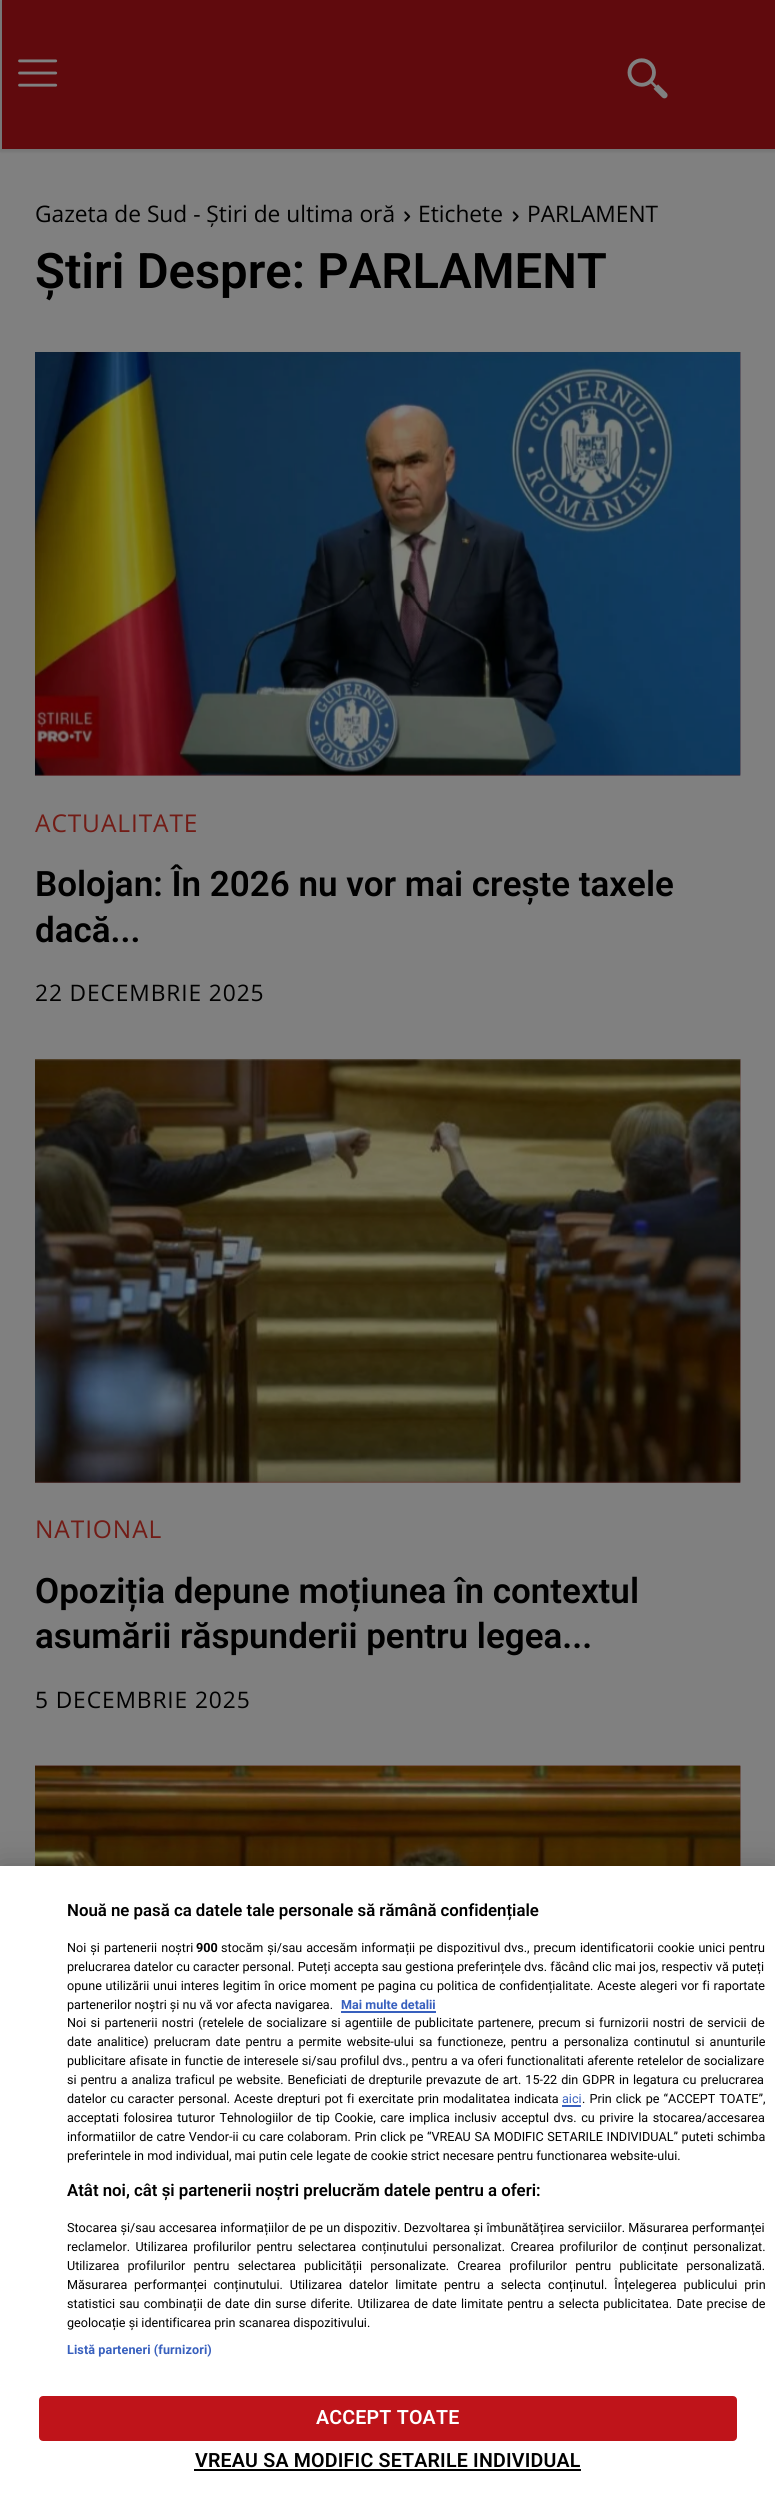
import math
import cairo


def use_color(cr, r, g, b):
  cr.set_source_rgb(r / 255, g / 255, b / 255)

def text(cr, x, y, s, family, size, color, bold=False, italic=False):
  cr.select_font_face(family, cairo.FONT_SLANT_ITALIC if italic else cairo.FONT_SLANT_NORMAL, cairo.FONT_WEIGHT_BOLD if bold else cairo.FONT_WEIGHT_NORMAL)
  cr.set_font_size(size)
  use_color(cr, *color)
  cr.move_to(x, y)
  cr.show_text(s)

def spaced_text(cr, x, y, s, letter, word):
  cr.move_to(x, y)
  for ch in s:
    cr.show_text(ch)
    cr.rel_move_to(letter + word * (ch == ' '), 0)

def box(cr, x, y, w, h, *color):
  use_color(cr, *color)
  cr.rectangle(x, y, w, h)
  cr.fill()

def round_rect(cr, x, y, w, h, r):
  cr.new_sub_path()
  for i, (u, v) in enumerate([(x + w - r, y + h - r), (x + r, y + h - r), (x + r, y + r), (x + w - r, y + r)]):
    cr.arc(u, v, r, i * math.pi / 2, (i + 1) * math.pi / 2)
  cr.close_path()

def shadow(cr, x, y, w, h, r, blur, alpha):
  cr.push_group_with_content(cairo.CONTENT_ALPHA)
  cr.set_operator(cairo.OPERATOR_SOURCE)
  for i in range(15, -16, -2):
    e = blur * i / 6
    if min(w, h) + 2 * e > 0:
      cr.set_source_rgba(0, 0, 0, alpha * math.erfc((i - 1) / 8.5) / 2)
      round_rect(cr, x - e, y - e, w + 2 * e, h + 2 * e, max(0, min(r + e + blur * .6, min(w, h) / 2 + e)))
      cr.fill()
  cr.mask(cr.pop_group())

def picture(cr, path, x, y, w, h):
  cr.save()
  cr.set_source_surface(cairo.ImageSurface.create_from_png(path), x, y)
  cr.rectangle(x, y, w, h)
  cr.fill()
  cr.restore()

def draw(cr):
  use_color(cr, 128, 128, 128)
  cr.paint()
  box(cr, 2, 0, 773, 149, 96, 10, 13)
  picture(cr, "img_01.png", 18, 59, 40, 28)
  picture(cr, "img_02.png", 627, 58, 41, 41)
  cr.save()
  cr.set_fill_rule(cairo.FILL_RULE_EVEN_ODD)
  cr.new_path()
  cr.move_to(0, 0)
  cr.line_to(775, 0)
  cr.line_to(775, 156)
  cr.line_to(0, 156)
  cr.close_path()
  cr.move_to(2, 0)
  cr.line_to(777, 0)
  cr.line_to(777, 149)
  cr.line_to(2, 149)
  cr.close_path()
  cr.clip()
  use_color(cr, 0, 0, 0)
  shadow(cr, 0, 0, 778, 152, 0, 1, 0.08)
  cr.restore()
  picture(cr, "img_03.png", 404, 211, 7, 11)
  picture(cr, "img_04.png", 512, 211, 7, 11)
  picture(cr, "img_05.png", 35, 352, 706, 424)
  picture(cr, "img_06.png", 35, 352, 706, 424)
  picture(cr, "img_07.png", 35, 1059, 706, 424)
  picture(cr, "img_08.png", 35, 1059, 706, 424)
  picture(cr, "img_09.png", 35, 1765, 706, 101)
  picture(cr, "img_10.png", 35, 1765, 706, 101)
  use_color(cr, 0, 0, 0)
  shadow(cr, 0, 1866, 775, 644, 0, 16, 0.2)
  box(cr, 0, 1866, 775, 643, 255, 255, 255)
  box(cr, 341, 2011, 95, 2, 56, 96, 190)
  box(cr, 562, 2105, 19, 2, 56, 96, 190)
  use_color(cr, 191, 20, 26)
  round_rect(cr, 40, 2397, 696, 43, 3)
  cr.fill_preserve()
  cr.stroke()
  box(cr, 194, 2469, 387, 2, 0, 0, 0)
  text(cr, 35, 222, "Gazeta de Sud - Știri de ultima oră", "Open Sans", 22.75, (0, 0, 0))
  text(cr, 418, 222, "Etichete", "Open Sans", 22.75, (0, 0, 0))
  text(cr, 527, 222, "PARLAMENT", "Open Sans", 22.75, (0, 0, 0))
  text(cr, 35, 288, "Știri Despre: PARLAMENT", "Roboto SemiBold", 49, (0, 0, 0))
  cr.select_font_face("Open Sans")
  cr.set_font_size(24.5)
  use_color(cr, 114, 28, 22)
  spaced_text(cr, 35, 832, "ACTUALITATE", 0.9, 0)
  text(cr, 35, 896, "Bolojan: În 2026 nu vor mai crește taxele", "Roboto SemiBold", 35, (0, 0, 0))
  text(cr, 35, 942, "dacă...", "Roboto SemiBold", 35, (0, 0, 0))
  cr.select_font_face("Open Sans")
  cr.set_font_size(22.75)
  spaced_text(cr, 35, 1001, "22 DECEMBRIE 2025", 0.9, 0)
  cr.set_font_size(24.5)
  use_color(cr, 114, 28, 22)
  spaced_text(cr, 35, 1538, "NATIONAL", 0.9, 0)
  text(cr, 35, 1603, "Opoziția depune moțiunea în contextul", "Roboto SemiBold", 35, (0, 0, 0))
  text(cr, 35, 1648, "asumării răspunderii pentru legea...", "Roboto SemiBold", 35, (0, 0, 0))
  cr.select_font_face("Open Sans")
  cr.set_font_size(22.75)
  spaced_text(cr, 35, 1708, "5 DECEMBRIE 2025", 0.9, 0)
  text(cr, 67, 1916, "Nouă ne pasă ca datele tale personale să rămână confidențiale", "Roboto SemiBold", 16.8, (0, 0, 0))
  cr.select_font_face("Roboto")
  cr.set_font_size(12.6)
  spaced_text(cr, 67, 1952, "Noi și partenerii noștri", 0, 1)
  text(cr, 196, 1952, "900", "Roboto", 12.6, (0, 0, 0), bold=True)
  cr.select_font_face("Roboto")
  spaced_text(cr, 221, 1952, "stocăm și/sau accesăm informații pe dispozitivul dvs., precum identificatorii cookie unici pentru", 0, 0.75)
  spaced_text(cr, 67, 1971, "prelucrarea datelor cu caracter personal. Puteți accepta sau gestiona preferințele dvs. făcând clic mai jos, respectiv vă puteți", 0, 0.1)
  spaced_text(cr, 67, 1990, "opune utilizării unui interes legitim în orice moment pe pagina cu politica de confidențialitate. Aceste alegeri vor fi raportate", 0, 0.6)
  text(cr, 67, 2009, "partenerilor noștri și nu vă vor afecta navigarea.", "Roboto", 12.6, (0, 0, 0))
  text(cr, 341, 2009, "Mai multe detalii", "Roboto", 12.6, (56, 96, 190), bold=True)
  cr.select_font_face("Roboto")
  use_color(cr, 0, 0, 0)
  spaced_text(cr, 67, 2027, "Noi si partenerii nostri (retelele de socializare si agentiile de publicitate partenere, precum si furnizorii nostri de servicii de", 0, 1.2)
  spaced_text(cr, 67, 2046, "date analitice) prelucram date pentru a permite website-ului sa functioneze, pentru a personaliza continutul si anunturile", 0, 2)
  spaced_text(cr, 67, 2065, "publicitare afisate in functie de interesele si/sau profilul dvs., pentru a va oferi functionalitati aferente retelelor de socializare", 0, 0.25)
  spaced_text(cr, 67, 2084, "si pentru a analiza traficul pe website. Beneficiati de drepturile prevazute de art. 15-22 din GDPR in legatura cu prelucrarea", 0, 0.9)
  spaced_text(cr, 67, 2103, "datelor cu caracter personal. Aceste drepturi pot fi exercitate prin modalitatea indicata", 0, 0.9)
  text(cr, 562, 2103, "aici", "Roboto", 12.6, (56, 96, 190))
  use_color(cr, 0, 0, 0)
  spaced_text(cr, 582, 2103, ". Prin click pe “ACCEPT TOATE”,", 0, 1)
  spaced_text(cr, 67, 2122, "acceptati folosirea tuturor Tehnologiilor de tip Cookie, care implica inclusiv acceptul dvs. cu privire la stocarea/accesarea", 0, 1.4)
  spaced_text(cr, 67, 2141, "informatiilor de catre Vendor-ii cu care colaboram. Prin click pe “VREAU SA MODIFIC SETARILE INDIVIDUAL” puteti schimba", 0, 0.5)
  text(cr, 67, 2160, "preferintele in mod individual, mai putin cele legate de cookie strict necesare pentru functionarea website-ului.", "Roboto", 12.6, (0, 0, 0))
  text(cr, 67, 2196, "Atât noi, cât și partenerii noștri prelucrăm datele pentru a oferi:", "Roboto SemiBold", 16.8, (0, 0, 0))
  cr.select_font_face("Roboto")
  cr.set_font_size(12.6)
  spaced_text(cr, 67, 2232, "Stocarea și/sau accesarea informațiilor de pe un dispozitiv. Dezvoltarea și îmbunătățirea serviciilor. Măsurarea performanței", 0, 0.25)
  spaced_text(cr, 67, 2251, "reclamelor. Utilizarea profilurilor pentru selectarea conținutului personalizat. Crearea profilurilor de conținut personalizat.", 0, 2.25)
  spaced_text(cr, 67, 2270, "Utilizarea profilurilor pentru selectarea publicității personalizate. Crearea profilurilor pentru publicitate personalizată.", 0, 5)
  spaced_text(cr, 67, 2289, "Măsurarea performanței conținutului. Utilizarea datelor limitate pentru a selecta conținutul. Înțelegerea publicului prin", 0, 3.75)
  spaced_text(cr, 67, 2308, "statistici sau combinații de date din surse diferite. Utilizarea de date limitate pentru a selecta publicitatea. Date precise de", 0, 1.1)
  text(cr, 67, 2327, "geolocație și identificarea prin scanarea dispozitivului.", "Roboto", 12.6, (0, 0, 0))
  cr.select_font_face("Roboto", cairo.FONT_SLANT_NORMAL, cairo.FONT_WEIGHT_BOLD)
  use_color(cr, 56, 96, 190)
  spaced_text(cr, 67, 2354, "Listă parteneri (furnizori)", 0.1, 0)
  cr.select_font_face("Roboto SemiBold")
  cr.set_font_size(19.6)
  use_color(cr, 255, 255, 255)
  spaced_text(cr, 316, 2424, "ACCEPT TOATE", 0.2, 0)
  use_color(cr, 0, 0, 0)
  spaced_text(cr, 195, 2467, "VREAU SA MODIFIC SETARILE INDIVIDUAL", 0.2, 0)


surface = cairo.ImageSurface(cairo.FORMAT_RGB24, 775, 2509)
cr = cairo.Context(surface)
options = cairo.FontOptions()
options.set_hint_metrics(cairo.HINT_METRICS_OFF)
options.set_hint_style(cairo.HINT_STYLE_NONE)
cr.set_font_options(options)
cr.set_miter_limit(4)
draw(cr)
surface.write_to_png("out.png")
